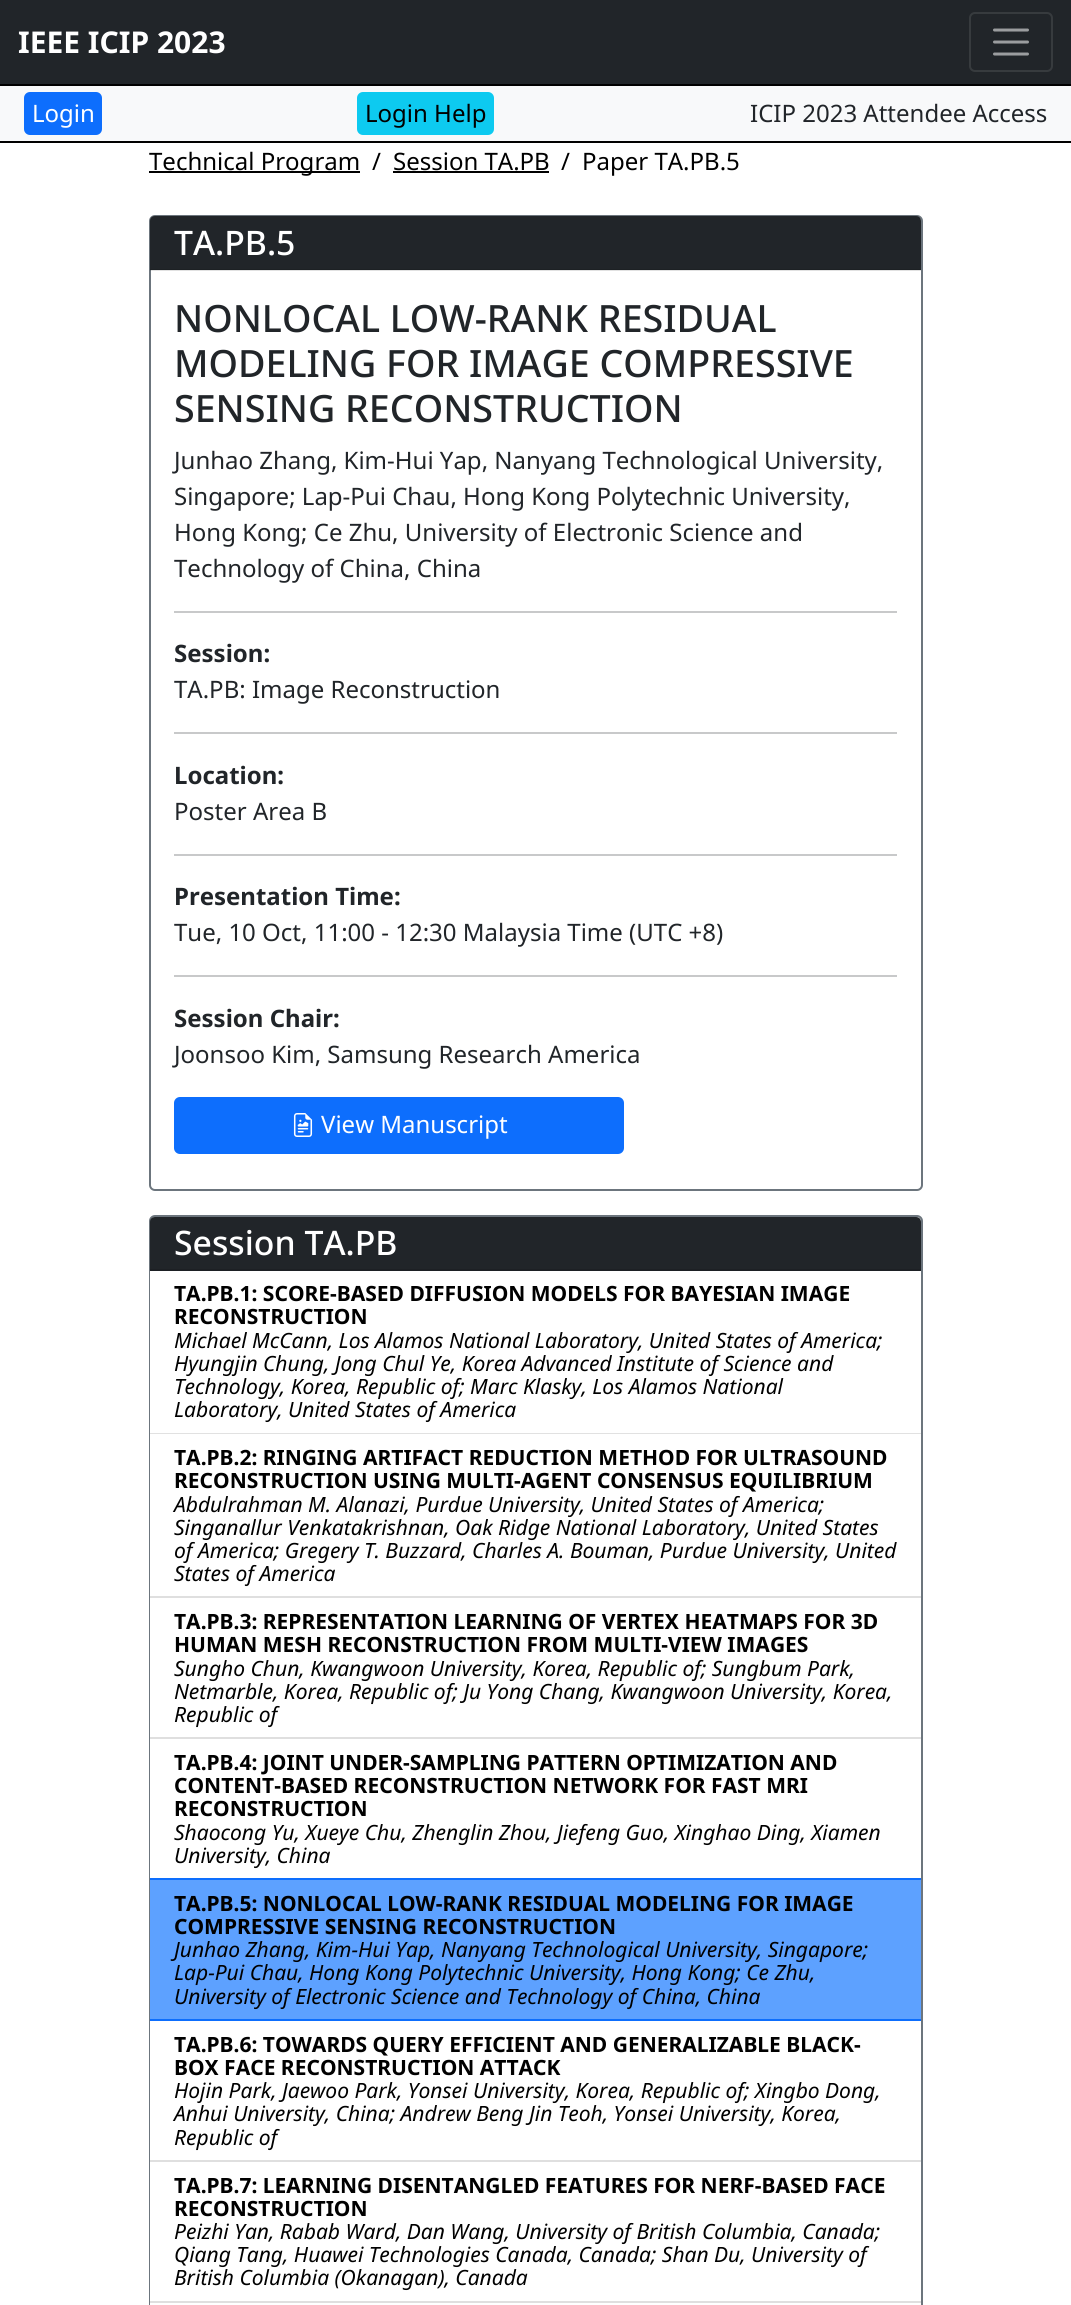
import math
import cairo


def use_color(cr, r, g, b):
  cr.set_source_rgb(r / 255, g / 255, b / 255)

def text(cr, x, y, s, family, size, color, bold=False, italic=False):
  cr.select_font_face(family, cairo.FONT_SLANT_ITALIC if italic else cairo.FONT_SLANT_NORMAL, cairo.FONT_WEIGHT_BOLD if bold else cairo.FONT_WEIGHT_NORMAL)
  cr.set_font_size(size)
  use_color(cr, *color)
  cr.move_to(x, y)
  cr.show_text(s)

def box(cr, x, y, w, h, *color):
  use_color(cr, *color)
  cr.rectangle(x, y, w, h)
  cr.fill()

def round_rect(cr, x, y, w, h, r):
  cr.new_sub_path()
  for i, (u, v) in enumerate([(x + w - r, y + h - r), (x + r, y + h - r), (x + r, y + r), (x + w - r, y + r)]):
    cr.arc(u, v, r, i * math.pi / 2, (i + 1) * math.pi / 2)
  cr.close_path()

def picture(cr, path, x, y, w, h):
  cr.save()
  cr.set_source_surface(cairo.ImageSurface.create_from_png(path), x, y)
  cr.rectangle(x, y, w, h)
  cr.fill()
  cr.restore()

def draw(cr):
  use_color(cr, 255, 255, 255)
  cr.paint()
  box(cr, 0, 0, 1071, 84, 33, 37, 41)
  round_rect(cr, 970, 13, 82, 58, 5)
  use_color(cr, 55, 59, 62)
  cr.stroke()
  cr.new_path()
  cr.move_to(994.5, 30)
  cr.line_to(1027.5, 30)
  cr.move_to(994.5, 42)
  cr.line_to(1027.5, 42)
  cr.move_to(994.5, 54)
  cr.line_to(1027.5, 54)
  use_color(cr, 155, 157, 159)
  cr.set_line_width(3)
  cr.set_line_cap(cairo.LINE_CAP_ROUND)
  cr.stroke()
  box(cr, 0, 86, 1071, 55, 248, 249, 250)
  box(cr, 0, 84, 1071, 2, 0, 0, 0)
  box(cr, 0, 141, 1071, 2, 0, 0, 0)
  use_color(cr, 13, 110, 253)
  round_rect(cr, 25, 93, 76, 41, 5)
  cr.fill_preserve()
  cr.set_line_width(2)
  cr.set_line_cap(cairo.LINE_CAP_BUTT)
  cr.stroke()
  use_color(cr, 13, 202, 240)
  round_rect(cr, 358, 93, 135, 41, 5)
  cr.fill_preserve()
  cr.stroke()
  box(cr, 149, 171, 211, 2, 0, 0, 0)
  box(cr, 393, 171, 156, 2, 0, 0, 0)
  round_rect(cr, 150, 216, 772, 974, 5)
  use_color(cr, 108, 117, 125)
  cr.stroke()
  use_color(cr, 33, 37, 41)
  cr.new_path()
  cr.move_to(155, 216)
  cr.line_to(916, 216)
  cr.curve_to(919, 216, 921, 218, 921, 221)
  cr.line_to(921, 270)
  cr.line_to(150, 270)
  cr.line_to(150, 221)
  cr.curve_to(150, 218, 152, 216, 155, 216)
  cr.close_path()
  cr.fill()
  cr.set_source_rgba(0, 0, 0, 0.12)
  cr.rectangle(150, 269, 771, 2)
  cr.fill()
  box(cr, 174, 611, 723, 2, 200, 201, 202)
  box(cr, 174, 732, 723, 2, 200, 201, 202)
  box(cr, 174, 854, 723, 2, 200, 201, 202)
  box(cr, 174, 975, 723, 2, 200, 201, 202)
  use_color(cr, 13, 110, 253)
  round_rect(cr, 175, 1098, 448, 55, 5)
  cr.fill_preserve()
  cr.stroke()
  picture(cr, "img_01.png", 293, 1113, 20, 24)
  round_rect(cr, 150, 1216, 772, 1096, 5)
  use_color(cr, 108, 117, 125)
  cr.stroke()
  use_color(cr, 33, 37, 41)
  cr.new_path()
  cr.move_to(155, 1217)
  cr.line_to(916, 1217)
  cr.curve_to(919, 1217, 921, 1219, 921, 1222)
  cr.line_to(921, 1271)
  cr.line_to(150, 1271)
  cr.line_to(150, 1222)
  cr.curve_to(150, 1219, 152, 1217, 155, 1217)
  cr.close_path()
  cr.fill()
  box(cr, 150, 1269, 771, 2, 29, 32, 36)
  box(cr, 150, 1271, 1, 325, 255, 255, 255)
  cr.set_source_rgba(0, 0, 0, 0.12)
  cr.rectangle(150, 1433, 771, 1)
  cr.fill()
  box(cr, 150, 1596, 771, 2, 223, 223, 223)
  box(cr, 150, 1598, 1, 139, 255, 255, 255)
  box(cr, 150, 1737, 771, 2, 223, 223, 223)
  box(cr, 150, 1739, 1, 139, 255, 255, 255)
  box(cr, 150, 1880, 771, 139, 93, 161, 255)
  box(cr, 150, 1878, 771, 2, 13, 110, 253)
  box(cr, 150, 2019, 771, 2, 13, 110, 253)
  box(cr, 150, 2021, 1, 139, 255, 255, 255)
  box(cr, 150, 2160, 771, 2, 223, 223, 223)
  box(cr, 150, 2162, 1, 139, 255, 255, 255)
  box(cr, 150, 2301, 771, 2, 223, 223, 223)
  box(cr, 150, 2303, 1, 2, 255, 255, 255)
  text(cr, 18, 53, "IEEE ICIP 2023", "Noto Sans", 30, (255, 255, 255), bold=True)
  text(cr, 32, 122, "Login", "Noto Sans", 24, (255, 255, 255))
  text(cr, 365, 122, "Login Help", "Noto Sans", 24, (0, 0, 0))
  text(cr, 750, 122, "ICIP 2023 Attendee Access", "Noto Sans", 24, (33, 37, 41))
  text(cr, 149, 170, "Technical Program", "Noto Sans", 24, (0, 0, 0))
  text(cr, 372, 170, "/", "Noto Sans", 24, (0, 0, 0))
  text(cr, 393, 170, "Session TA.PB", "Noto Sans", 24, (0, 0, 0))
  text(cr, 561, 170, "/", "Noto Sans", 24, (0, 0, 0))
  text(cr, 582, 170, "Paper TA.PB.5", "Noto Sans", 24, (0, 0, 0))
  text(cr, 174, 255, "TA.PB.5", "Noto Sans Medium", 33.75, (255, 255, 255))
  text(cr, 174, 332, "NONLOCAL LOW-RANK RESIDUAL", "Noto Sans Medium", 37.6, (33, 37, 41))
  text(cr, 174, 377, "MODELING FOR IMAGE COMPRESSIVE", "Noto Sans Medium", 37.6, (33, 37, 41))
  text(cr, 174, 422, "SENSING RECONSTRUCTION", "Noto Sans Medium", 37.6, (33, 37, 41))
  text(cr, 174, 469, "Junhao Zhang, Kim-Hui Yap, Nanyang Technological University,", "Noto Sans", 24, (33, 37, 41))
  text(cr, 174, 505, "Singapore; Lap-Pui Chau, Hong Kong Polytechnic University,", "Noto Sans", 24, (33, 37, 41))
  text(cr, 174, 541, "Hong Kong; Ce Zhu, University of Electronic Science and", "Noto Sans", 24, (33, 37, 41))
  text(cr, 174, 577, "Technology of China, China", "Noto Sans", 24, (33, 37, 41))
  text(cr, 174, 662, "Session:", "Noto Sans", 24, (33, 37, 41), bold=True)
  text(cr, 174, 698, "TA.PB: Image Reconstruction", "Noto Sans", 24, (33, 37, 41))
  text(cr, 174, 784, "Location:", "Noto Sans", 24, (33, 37, 41), bold=True)
  text(cr, 174, 820, "Poster Area B", "Noto Sans", 24, (33, 37, 41))
  text(cr, 174, 905, "Presentation Time:", "Noto Sans", 24, (33, 37, 41), bold=True)
  text(cr, 174, 941, "Tue, 10 Oct, 11:00 - 12:30 Malaysia Time (UTC +8)", "Noto Sans", 24, (33, 37, 41))
  text(cr, 174, 1027, "Session Chair:", "Noto Sans", 24, (33, 37, 41), bold=True)
  text(cr, 174, 1063, "Joonsoo Kim, Samsung Research America", "Noto Sans", 24, (33, 37, 41))
  text(cr, 321, 1133, "View Manuscript", "Noto Sans", 24, (255, 255, 255))
  text(cr, 174, 1255, "Session TA.PB", "Noto Sans Medium", 33.75, (255, 255, 255))
  text(cr, 174, 1301, "TA.PB.1: SCORE-BASED DIFFUSION MODELS FOR BAYESIAN IMAGE", "Noto Sans", 21, (0, 0, 0), bold=True)
  text(cr, 174, 1324, "RECONSTRUCTION", "Noto Sans", 21, (0, 0, 0), bold=True)
  text(cr, 174, 1348, "Michael McCann, Los Alamos National Laboratory, United States of America;", "Noto Sans", 21, (0, 0, 0), italic=True)
  text(cr, 174, 1371, "Hyungjin Chung, Jong Chul Ye, Korea Advanced Institute of Science and", "Noto Sans", 21, (0, 0, 0), italic=True)
  text(cr, 174, 1394, "Technology, Korea, Republic of; Marc Klasky, Los Alamos National", "Noto Sans", 21, (0, 0, 0), italic=True)
  text(cr, 174, 1417, "Laboratory, United States of America", "Noto Sans", 21, (0, 0, 0), italic=True)
  text(cr, 174, 1465, "TA.PB.2: RINGING ARTIFACT REDUCTION METHOD FOR ULTRASOUND", "Noto Sans", 21, (0, 0, 0), bold=True)
  text(cr, 174, 1488, "RECONSTRUCTION USING MULTI-AGENT CONSENSUS EQUILIBRIUM", "Noto Sans", 21, (0, 0, 0), bold=True)
  text(cr, 174, 1512, "Abdulrahman M. Alanazi, Purdue University, United States of America;", "Noto Sans", 21, (0, 0, 0), italic=True)
  text(cr, 174, 1535, "Singanallur Venkatakrishnan, Oak Ridge National Laboratory, United States", "Noto Sans", 21, (0, 0, 0), italic=True)
  text(cr, 174, 1558, "of America; Gregery T. Buzzard, Charles A. Bouman, Purdue University, United", "Noto Sans", 21, (0, 0, 0), italic=True)
  text(cr, 174, 1581, "States of America", "Noto Sans", 21, (0, 0, 0), italic=True)
  text(cr, 174, 1629, "TA.PB.3: REPRESENTATION LEARNING OF VERTEX HEATMAPS FOR 3D", "Noto Sans", 21, (0, 0, 0), bold=True)
  text(cr, 174, 1652, "HUMAN MESH RECONSTRUCTION FROM MULTI-VIEW IMAGES", "Noto Sans", 21, (0, 0, 0), bold=True)
  text(cr, 174, 1676, "Sungho Chun, Kwangwoon University, Korea, Republic of; Sungbum Park,", "Noto Sans", 21, (0, 0, 0), italic=True)
  text(cr, 174, 1699, "Netmarble, Korea, Republic of; Ju Yong Chang, Kwangwoon University, Korea,", "Noto Sans", 21, (0, 0, 0), italic=True)
  text(cr, 174, 1722, "Republic of", "Noto Sans", 21, (0, 0, 0), italic=True)
  text(cr, 174, 1770, "TA.PB.4: JOINT UNDER-SAMPLING PATTERN OPTIMIZATION AND", "Noto Sans", 21, (0, 0, 0), bold=True)
  text(cr, 174, 1793, "CONTENT-BASED RECONSTRUCTION NETWORK FOR FAST MRI", "Noto Sans", 21, (0, 0, 0), bold=True)
  text(cr, 174, 1816, "RECONSTRUCTION", "Noto Sans", 21, (0, 0, 0), bold=True)
  text(cr, 174, 1840, "Shaocong Yu, Xueye Chu, Zhenglin Zhou, Jiefeng Guo, Xinghao Ding, Xiamen", "Noto Sans", 21, (0, 0, 0), italic=True)
  text(cr, 174, 1863, "University, China", "Noto Sans", 21, (0, 0, 0), italic=True)
  text(cr, 174, 1911, "TA.PB.5: NONLOCAL LOW-RANK RESIDUAL MODELING FOR IMAGE", "Noto Sans", 21, (0, 0, 0), bold=True)
  text(cr, 174, 1934, "COMPRESSIVE SENSING RECONSTRUCTION", "Noto Sans", 21, (0, 0, 0), bold=True)
  text(cr, 174, 1957, "Junhao Zhang, Kim-Hui Yap, Nanyang Technological University, Singapore;", "Noto Sans", 21, (0, 0, 0), italic=True)
  text(cr, 174, 1980, "Lap-Pui Chau, Hong Kong Polytechnic University, Hong Kong; Ce Zhu,", "Noto Sans", 21, (0, 0, 0), italic=True)
  text(cr, 174, 2004, "University of Electronic Science and Technology of China, China", "Noto Sans", 21, (0, 0, 0), italic=True)
  text(cr, 174, 2052, "TA.PB.6: TOWARDS QUERY EFFICIENT AND GENERALIZABLE BLACK-", "Noto Sans", 21, (0, 0, 0), bold=True)
  text(cr, 174, 2075, "BOX FACE RECONSTRUCTION ATTACK", "Noto Sans", 21, (0, 0, 0), bold=True)
  text(cr, 174, 2098, "Hojin Park, Jaewoo Park, Yonsei University, Korea, Republic of; Xingbo Dong,", "Noto Sans", 21, (0, 0, 0), italic=True)
  text(cr, 174, 2121, "Anhui University, China; Andrew Beng Jin Teoh, Yonsei University, Korea,", "Noto Sans", 21, (0, 0, 0), italic=True)
  text(cr, 174, 2145, "Republic of", "Noto Sans", 21, (0, 0, 0), italic=True)
  text(cr, 174, 2193, "TA.PB.7: LEARNING DISENTANGLED FEATURES FOR NERF-BASED FACE", "Noto Sans", 21, (0, 0, 0), bold=True)
  text(cr, 174, 2216, "RECONSTRUCTION", "Noto Sans", 21, (0, 0, 0), bold=True)
  text(cr, 174, 2239, "Peizhi Yan, Rabab Ward, Dan Wang, University of British Columbia, Canada;", "Noto Sans", 21, (0, 0, 0), italic=True)
  text(cr, 174, 2262, "Qiang Tang, Huawei Technologies Canada, Canada; Shan Du, University of", "Noto Sans", 21, (0, 0, 0), italic=True)
  text(cr, 174, 2285, "British Columbia (Okanagan), Canada", "Noto Sans", 21, (0, 0, 0), italic=True)


surface = cairo.ImageSurface(cairo.FORMAT_RGB24, 1071, 2305)
cr = cairo.Context(surface)
options = cairo.FontOptions()
options.set_hint_metrics(cairo.HINT_METRICS_OFF)
options.set_hint_style(cairo.HINT_STYLE_NONE)
cr.set_font_options(options)
cr.set_miter_limit(4)
draw(cr)
surface.write_to_png("out.png")
